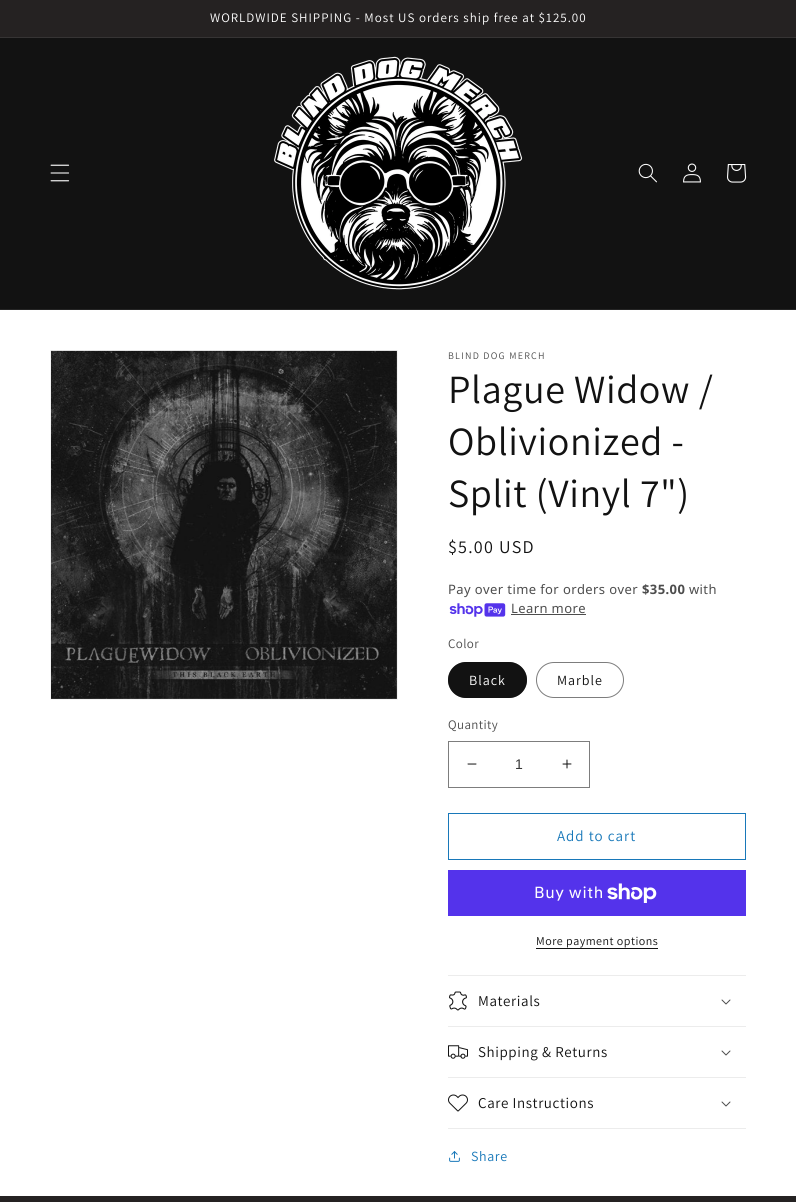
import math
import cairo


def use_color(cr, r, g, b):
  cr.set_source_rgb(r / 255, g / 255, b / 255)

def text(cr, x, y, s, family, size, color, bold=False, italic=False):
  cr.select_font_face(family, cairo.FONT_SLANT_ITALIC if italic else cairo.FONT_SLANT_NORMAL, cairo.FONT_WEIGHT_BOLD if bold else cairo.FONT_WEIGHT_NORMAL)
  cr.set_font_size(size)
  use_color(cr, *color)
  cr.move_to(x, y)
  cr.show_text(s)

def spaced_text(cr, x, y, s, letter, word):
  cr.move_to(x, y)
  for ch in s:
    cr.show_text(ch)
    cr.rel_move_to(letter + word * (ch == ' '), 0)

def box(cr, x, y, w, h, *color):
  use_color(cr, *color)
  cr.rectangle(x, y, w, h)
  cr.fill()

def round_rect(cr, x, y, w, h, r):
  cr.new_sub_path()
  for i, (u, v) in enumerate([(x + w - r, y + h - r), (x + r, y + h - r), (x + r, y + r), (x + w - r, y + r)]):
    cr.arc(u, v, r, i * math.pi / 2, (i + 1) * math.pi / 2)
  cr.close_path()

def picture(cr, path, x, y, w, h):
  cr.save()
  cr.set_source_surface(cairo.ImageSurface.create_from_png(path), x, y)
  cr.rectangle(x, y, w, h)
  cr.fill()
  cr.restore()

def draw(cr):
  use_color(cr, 255, 255, 255)
  cr.paint()
  box(cr, 0, 0, 796, 37, 37, 34, 34)
  box(cr, 0, 37, 796, 1, 54, 52, 52)
  box(cr, 0, 38, 796, 271, 18, 18, 18)
  box(cr, 0, 309, 796, 1, 37, 37, 37)
  picture(cr, "img_01.png", 50, 164, 20, 18)
  picture(cr, "img_02.png", 274, 56, 249, 234)
  picture(cr, "img_03.png", 638, 163, 19, 20)
  picture(cr, "img_04.png", 683, 163, 18, 20)
  picture(cr, "img_05.png", 727, 164, 20, 19)
  cr.rectangle(50.5, 350.5, 347, 349)
  use_color(cr, 243, 243, 243)
  cr.set_line_width(1)
  cr.stroke()
  picture(cr, "img_06.png", 51, 350, 346, 349)
  picture(cr, "img_07.png", 449, 603, 57, 14)
  box(cr, 511, 614, 75, 1, 77, 77, 77)
  use_color(cr, 18, 18, 18)
  round_rect(cr, 448, 662, 79, 36, 18)
  cr.fill()
  round_rect(cr, 448.5, 662.5, 78, 35, 17.5)
  cr.set_source_rgba(0.071, 0.071, 0.071, 0.55)
  cr.stroke()
  round_rect(cr, 536.5, 662.5, 87, 35, 17.5)
  use_color(cr, 125, 125, 125)
  cr.stroke()
  picture(cr, "img_08.png", 467, 763, 10, 2)
  picture(cr, "img_09.png", 562, 759, 10, 10)
  cr.rectangle(448.5, 741.5, 141, 46)
  cr.stroke()
  cr.rectangle(448.5, 813.5, 297, 46)
  use_color(cr, 24, 120, 185)
  cr.stroke()
  box(cr, 448, 870, 298, 46, 84, 51, 235)
  picture(cr, "img_10.png", 607, 883, 50, 20)
  box(cr, 536, 948, 122, 1, 18, 18, 18)
  box(cr, 448, 975, 298, 1, 236, 236, 236)
  box(cr, 448, 1026, 298, 1, 236, 236, 236)
  picture(cr, "img_11.png", 449, 991, 18, 20)
  picture(cr, "img_12.png", 721, 999, 10, 6)
  box(cr, 448, 1077, 298, 1, 236, 236, 236)
  picture(cr, "img_13.png", 448, 1045, 20, 14)
  picture(cr, "img_12.png", 721, 1050, 10, 6)
  box(cr, 448, 1128, 298, 1, 236, 236, 236)
  picture(cr, "img_14.png", 448, 1094, 20, 18)
  picture(cr, "img_12.png", 721, 1101, 10, 6)
  picture(cr, "img_15.png", 449, 1151, 11, 11)
  box(cr, 0, 1196, 796, 6, 37, 34, 34)
  cr.select_font_face("Assistant")
  cr.set_font_size(13)
  use_color(cr, 255, 255, 255)
  spaced_text(cr, 210, 22, "WORLDWIDE SHIPPING - Most US orders ship free at $125.00", 1, 0)
  cr.set_font_size(10)
  use_color(cr, 77, 77, 77)
  spaced_text(cr, 448, 359, "BLIND DOG MERCH", 1.25, 0)
  cr.set_font_size(40)
  use_color(cr, 18, 18, 18)
  spaced_text(cr, 448, 403, "Plague Widow /", 0.6, 0)
  spaced_text(cr, 448, 455, "Oblivionized -", 0.6, 0)
  spaced_text(cr, 448, 507, "Split (Vinyl 7\")", 0.6, 0)
  cr.set_font_size(18)
  spaced_text(cr, 448, 553, "$5.00 USD", 1.25, 0)
  cr.select_font_face("Noto Sans")
  cr.set_font_size(13)
  use_color(cr, 77, 77, 77)
  spaced_text(cr, 448, 594, "Pay over time for orders over", 0.4, 0)
  cr.select_font_face("Noto Sans", cairo.FONT_SLANT_NORMAL, cairo.FONT_WEIGHT_BOLD)
  spaced_text(cr, 642, 594, "$35.00", 0.4, 0)
  cr.select_font_face("Noto Sans")
  spaced_text(cr, 689, 594, "with", 0.4, 0)
  spaced_text(cr, 511, 613, "Learn more", 0.4, 0)
  cr.select_font_face("Assistant")
  spaced_text(cr, 448, 648, "Color", 0.4, 0)
  cr.set_font_size(14)
  use_color(cr, 255, 255, 255)
  spaced_text(cr, 469, 685, "Black", 1, 0)
  use_color(cr, 18, 18, 18)
  spaced_text(cr, 557, 685, "Marble", 1, 0)
  cr.set_font_size(13)
  use_color(cr, 77, 77, 77)
  spaced_text(cr, 448, 729, "Quantity", 0.4, 0)
  text(cr, 515, 769, "1", "Liberation Sans", 14, (54, 54, 54))
  cr.select_font_face("Assistant")
  cr.set_font_size(15)
  use_color(cr, 24, 120, 185)
  spaced_text(cr, 557, 841, "Add to cart", 1, 0)
  cr.select_font_face("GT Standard")
  cr.set_font_size(16)
  use_color(cr, 255, 255, 255)
  spaced_text(cr, 534, 898, "Buy with", 0.6, 0)
  cr.select_font_face("Assistant")
  cr.set_font_size(12)
  use_color(cr, 18, 18, 18)
  spaced_text(cr, 536, 945, "More payment options", 0.5, 0)
  cr.set_font_size(15)
  spaced_text(cr, 478, 1006, "Materials", 0.6, 0)
  spaced_text(cr, 478, 1057, "Shipping & Returns", 0.6, 0)
  spaced_text(cr, 478, 1108, "Care Instructions", 0.6, 0)
  cr.set_font_size(14)
  use_color(cr, 24, 120, 185)
  spaced_text(cr, 471, 1161, "Share", 0.6, 0)


surface = cairo.ImageSurface(cairo.FORMAT_RGB24, 796, 1202)
cr = cairo.Context(surface)
options = cairo.FontOptions()
options.set_hint_metrics(cairo.HINT_METRICS_OFF)
options.set_hint_style(cairo.HINT_STYLE_NONE)
cr.set_font_options(options)
cr.set_miter_limit(4)
draw(cr)
surface.write_to_png("out.png")
